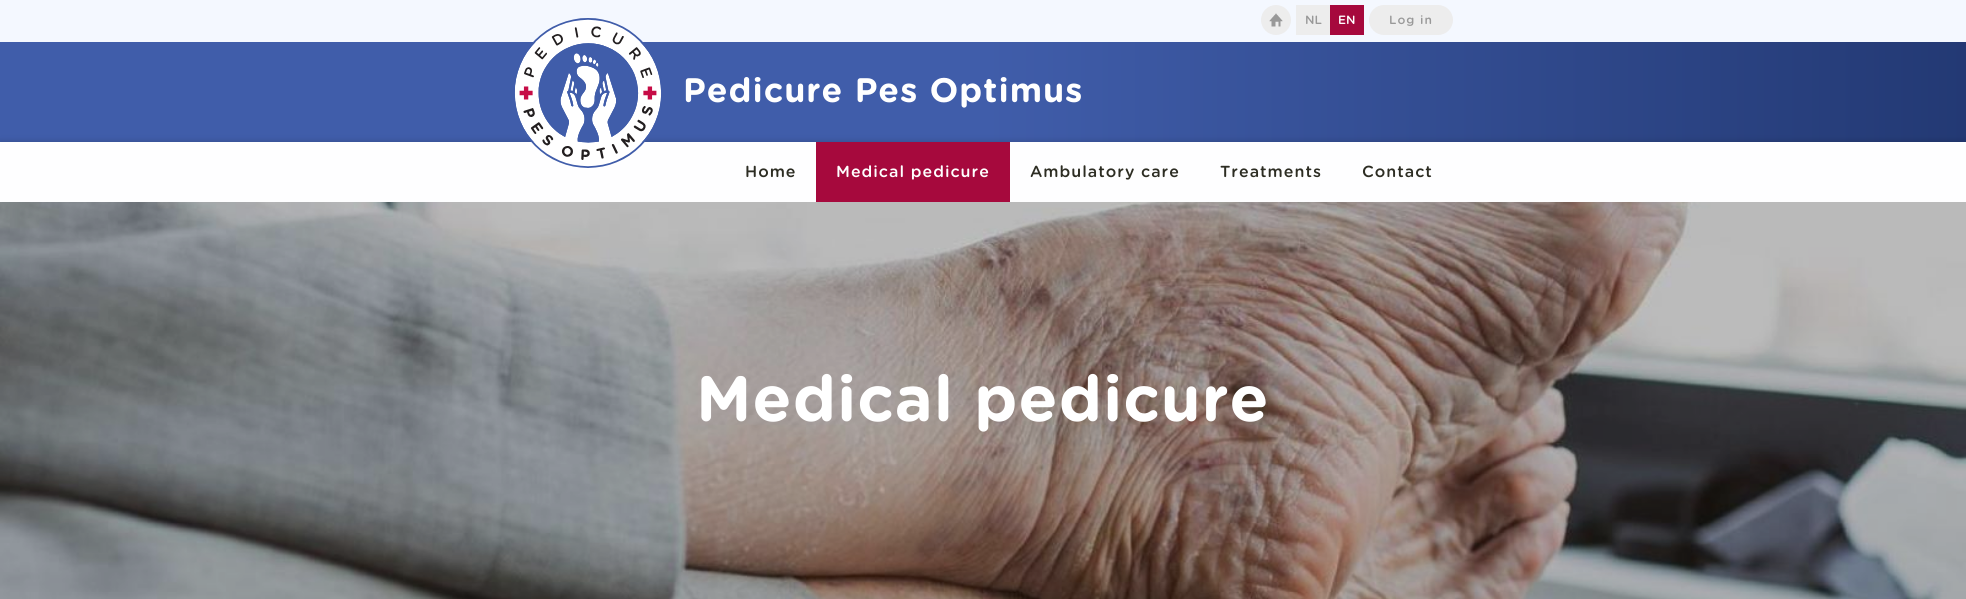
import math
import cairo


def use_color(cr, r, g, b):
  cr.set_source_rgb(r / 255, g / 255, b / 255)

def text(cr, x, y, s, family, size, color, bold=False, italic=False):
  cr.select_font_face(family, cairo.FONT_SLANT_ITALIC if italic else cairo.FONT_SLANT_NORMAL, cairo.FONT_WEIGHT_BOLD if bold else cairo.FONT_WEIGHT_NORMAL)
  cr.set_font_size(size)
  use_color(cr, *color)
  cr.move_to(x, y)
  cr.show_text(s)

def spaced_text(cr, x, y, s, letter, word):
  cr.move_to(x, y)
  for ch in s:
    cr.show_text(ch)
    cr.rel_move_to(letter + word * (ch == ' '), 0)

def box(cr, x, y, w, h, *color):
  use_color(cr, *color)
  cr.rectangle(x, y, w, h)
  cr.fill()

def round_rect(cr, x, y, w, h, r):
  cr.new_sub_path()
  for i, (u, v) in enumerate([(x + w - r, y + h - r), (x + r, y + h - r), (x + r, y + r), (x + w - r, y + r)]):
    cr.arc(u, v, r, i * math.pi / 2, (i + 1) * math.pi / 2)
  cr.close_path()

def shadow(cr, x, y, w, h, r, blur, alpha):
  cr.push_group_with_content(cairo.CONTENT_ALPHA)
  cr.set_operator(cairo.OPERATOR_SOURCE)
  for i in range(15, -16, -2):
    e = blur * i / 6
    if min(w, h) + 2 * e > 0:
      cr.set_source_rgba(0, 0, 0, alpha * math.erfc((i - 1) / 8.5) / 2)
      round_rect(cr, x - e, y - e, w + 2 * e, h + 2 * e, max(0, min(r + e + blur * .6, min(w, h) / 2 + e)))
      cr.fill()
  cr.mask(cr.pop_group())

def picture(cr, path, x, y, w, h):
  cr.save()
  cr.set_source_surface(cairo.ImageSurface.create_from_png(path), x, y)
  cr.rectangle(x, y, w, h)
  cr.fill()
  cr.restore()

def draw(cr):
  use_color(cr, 244, 248, 255)
  cr.paint()
  use_color(cr, 237, 237, 237)
  cr.arc(1276, 20, 15, 0, 2 * math.pi)
  cr.fill()
  picture(cr, "img_01.png", 1269, 13, 14, 14)
  box(cr, 1296, 5, 34, 30, 237, 237, 237)
  box(cr, 1330, 5, 34, 30, 166, 9, 61)
  use_color(cr, 237, 237, 237)
  round_rect(cr, 1369, 5, 84, 30, 15)
  cr.fill()
  gradient = cairo.LinearGradient(0, 92, 1966, 92)
  gradient.add_color_stop_rgba(0.5, 0.251, 0.365, 0.667, 1)
  gradient.add_color_stop_rgba(1, 0.137, 0.224, 0.455, 1)
  cr.set_source(gradient)
  cr.rectangle(0, 42, 1966, 100)
  cr.fill()
  use_color(cr, 0, 0, 0)
  shadow(cr, 0, 142, 1966, 60, 0, 3.5, 0.2)
  box(cr, 0, 142, 1966, 60, 254, 254, 255)
  picture(cr, "img_02.png", 514, 18, 148, 150)
  box(cr, 816, 142, 194, 60, 166, 9, 61)
  picture(cr, "img_03.png", 0, 202, 1966, 397)
  text(cr, 1305, 24, "NL", "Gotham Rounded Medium", 12, (153, 153, 153))
  text(cr, 1338, 24, "EN", "Gotham Rounded Medium", 12, (255, 255, 255))
  use_color(cr, 153, 153, 153)
  spaced_text(cr, 1389, 24, "Log in", 1, 0)
  cr.select_font_face("Gotham Rounded", cairo.FONT_SLANT_NORMAL, cairo.FONT_WEIGHT_BOLD)
  cr.set_font_size(34)
  use_color(cr, 255, 255, 255)
  spaced_text(cr, 683, 102, "Pedicure Pes Optimus", 1, 0)
  cr.select_font_face("Gotham Rounded Medium")
  cr.set_font_size(16)
  use_color(cr, 45, 45, 35)
  spaced_text(cr, 745, 177, "Home", 1, 0)
  use_color(cr, 255, 255, 255)
  spaced_text(cr, 836, 177, "Medical pedicure", 1, 0)
  use_color(cr, 45, 45, 35)
  spaced_text(cr, 1030, 177, "Ambulatory care", 1, 0)
  spaced_text(cr, 1220, 177, "Treatments", 1, 0)
  spaced_text(cr, 1362, 177, "Contact", 1, 0)
  cr.select_font_face("Gotham Rounded", cairo.FONT_SLANT_NORMAL, cairo.FONT_WEIGHT_BOLD)
  cr.set_font_size(64)
  use_color(cr, 255, 255, 255)
  spaced_text(cr, 696, 421, "Medical pedicure", 1, 0)


surface = cairo.ImageSurface(cairo.FORMAT_RGB24, 1966, 599)
cr = cairo.Context(surface)
options = cairo.FontOptions()
options.set_hint_metrics(cairo.HINT_METRICS_OFF)
options.set_hint_style(cairo.HINT_STYLE_NONE)
cr.set_font_options(options)
cr.set_miter_limit(4)
draw(cr)
surface.write_to_png("out.png")
